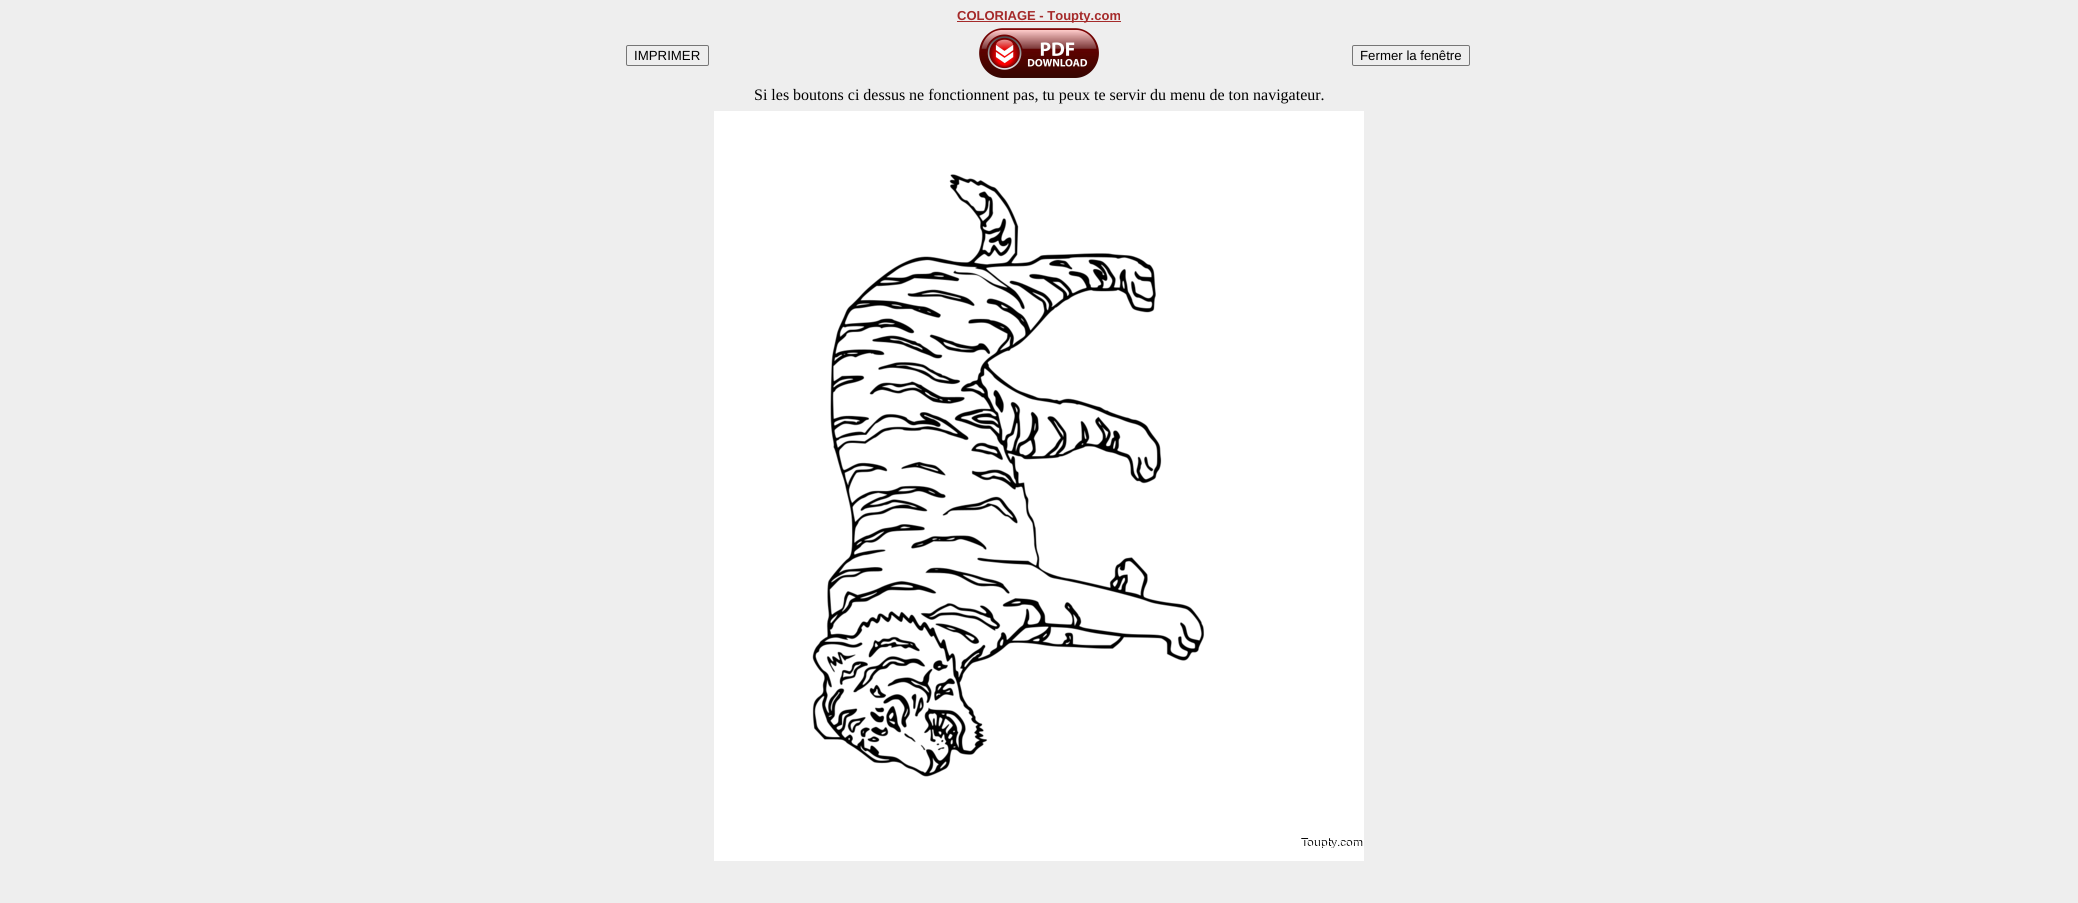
import math
import cairo


def use_color(cr, r, g, b):
  cr.set_source_rgb(r / 255, g / 255, b / 255)

def text(cr, x, y, s, family, size, color, bold=False, italic=False):
  cr.select_font_face(family, cairo.FONT_SLANT_ITALIC if italic else cairo.FONT_SLANT_NORMAL, cairo.FONT_WEIGHT_BOLD if bold else cairo.FONT_WEIGHT_NORMAL)
  cr.set_font_size(size)
  use_color(cr, *color)
  cr.move_to(x, y)
  cr.show_text(s)

def box(cr, x, y, w, h, *color):
  use_color(cr, *color)
  cr.rectangle(x, y, w, h)
  cr.fill()

def round_rect(cr, x, y, w, h, r):
  cr.new_sub_path()
  for i, (u, v) in enumerate([(x + w - r, y + h - r), (x + r, y + h - r), (x + r, y + r), (x + w - r, y + r)]):
    cr.arc(u, v, r, i * math.pi / 2, (i + 1) * math.pi / 2)
  cr.close_path()

def picture(cr, path, x, y, w, h):
  cr.save()
  cr.set_source_surface(cairo.ImageSurface.create_from_png(path), x, y)
  cr.rectangle(x, y, w, h)
  cr.fill()
  cr.restore()

def draw(cr):
  use_color(cr, 238, 238, 238)
  cr.paint()
  box(cr, 957, 21, 164, 1, 165, 42, 42)
  round_rect(cr, 626.5, 45.5, 82, 20, 1.5)
  use_color(cr, 118, 118, 118)
  cr.set_line_width(1)
  cr.stroke()
  picture(cr, "img_01.png", 979, 28, 120, 50)
  round_rect(cr, 1352.5, 45.5, 117, 20, 1.5)
  cr.stroke()
  picture(cr, "img_02.png", 714, 111, 650, 750)
  text(cr, 957, 20, "COLORIAGE - Toupty.com", "Liberation Sans", 13, (165, 42, 42), bold=True)
  text(cr, 634, 60, "IMPRIMER", "Liberation Sans", 13.25, (0, 0, 0))
  text(cr, 1360, 60, "Fermer la fenêtre", "Liberation Sans", 13.25, (0, 0, 0))
  text(cr, 754, 100, "Si les boutons ci dessus ne fonctionnent pas, tu peux te servir du menu de ton navigateur.", "Liberation Serif", 16, (0, 0, 0))


surface = cairo.ImageSurface(cairo.FORMAT_RGB24, 2078, 903)
cr = cairo.Context(surface)
options = cairo.FontOptions()
options.set_hint_metrics(cairo.HINT_METRICS_OFF)
options.set_hint_style(cairo.HINT_STYLE_NONE)
cr.set_font_options(options)
cr.set_miter_limit(4)
draw(cr)
surface.write_to_png("out.png")
